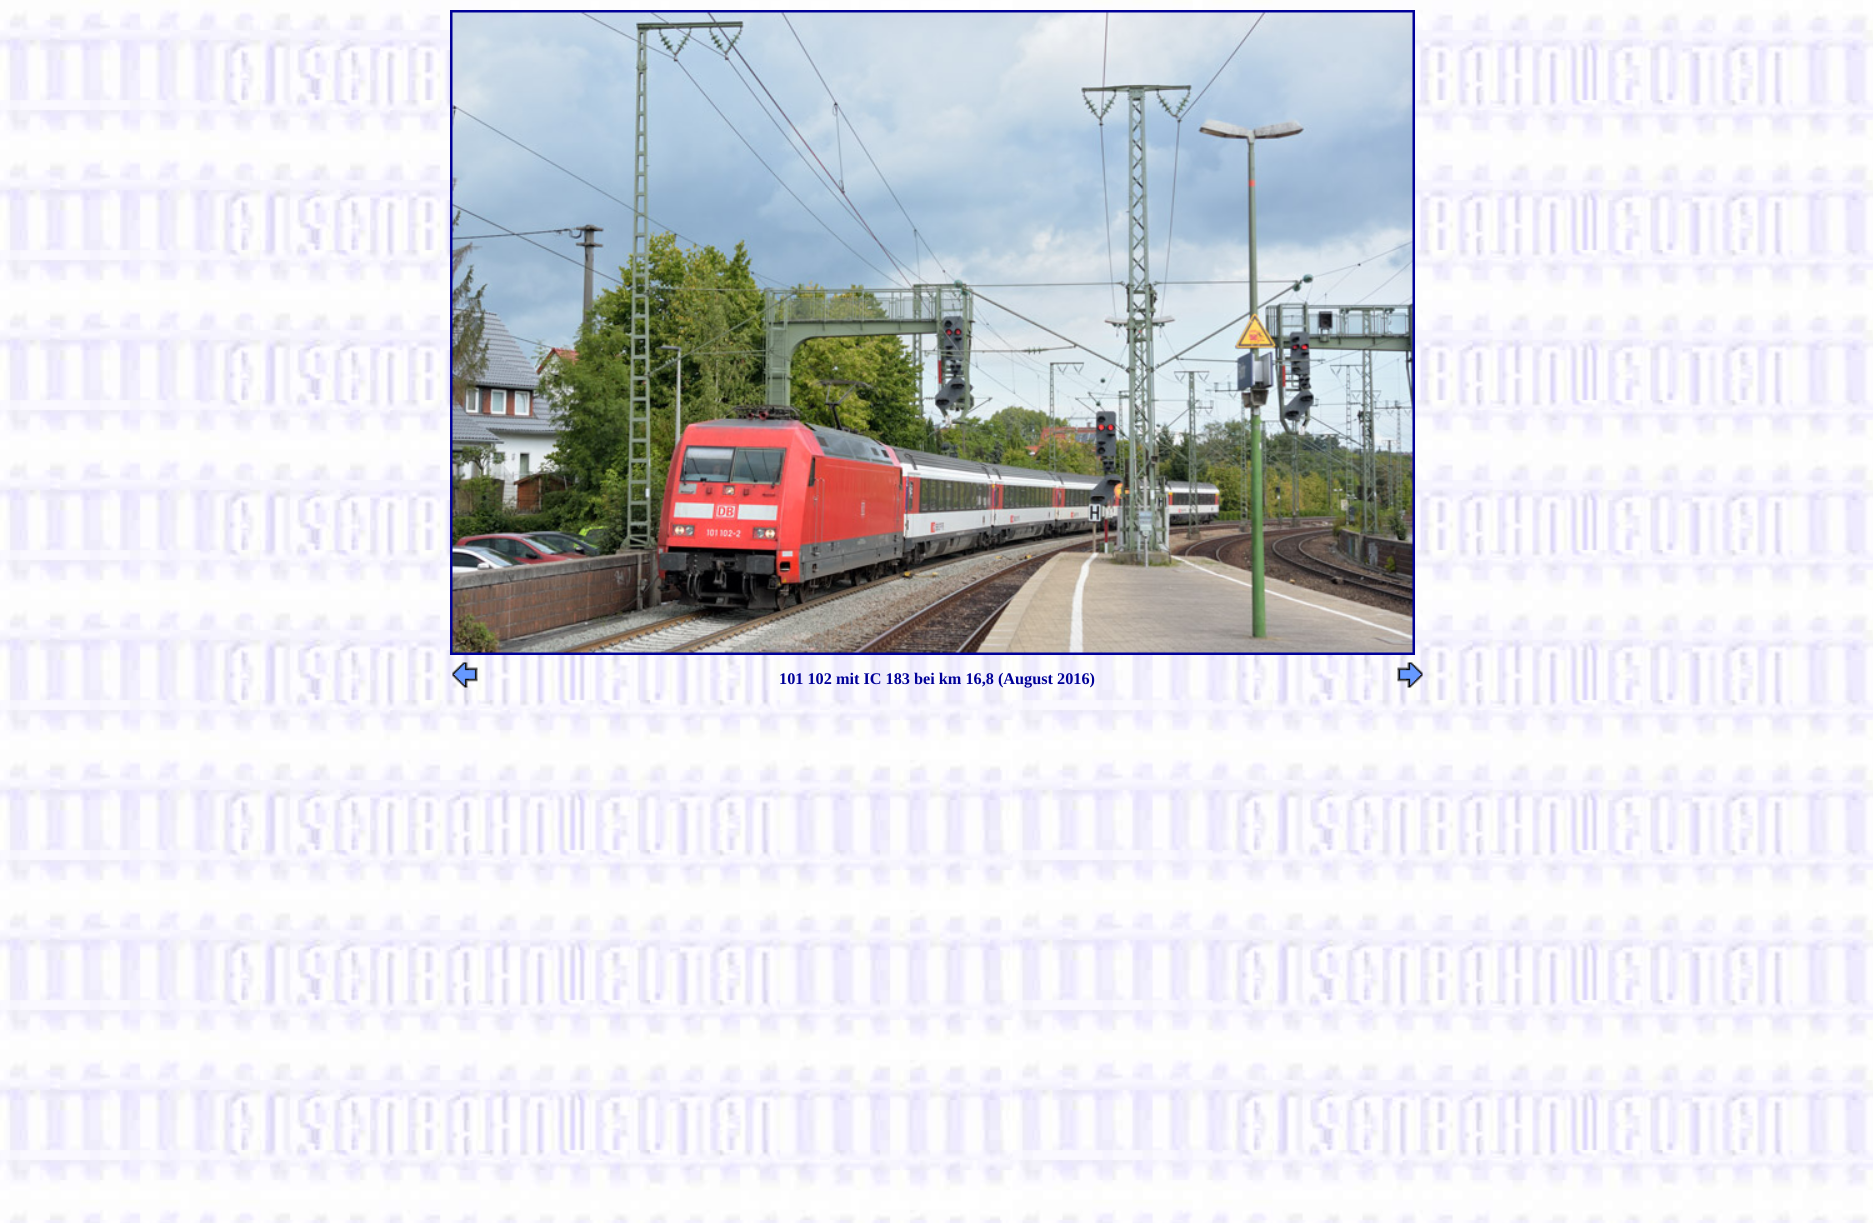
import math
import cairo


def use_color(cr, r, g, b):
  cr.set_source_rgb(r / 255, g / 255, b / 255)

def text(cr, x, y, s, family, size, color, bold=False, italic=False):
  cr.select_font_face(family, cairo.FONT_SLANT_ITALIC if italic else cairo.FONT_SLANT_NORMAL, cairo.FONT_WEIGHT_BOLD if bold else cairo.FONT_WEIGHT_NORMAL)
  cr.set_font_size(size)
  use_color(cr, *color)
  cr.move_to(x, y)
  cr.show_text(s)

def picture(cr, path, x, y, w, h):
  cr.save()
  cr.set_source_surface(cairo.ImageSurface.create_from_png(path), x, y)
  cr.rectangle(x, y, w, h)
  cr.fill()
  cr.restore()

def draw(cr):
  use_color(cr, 255, 255, 255)
  cr.paint()
  picture(cr, "img_01.png", 0, 0, 1873, 1223)
  cr.rectangle(451.5, 11.5, 962, 642)
  use_color(cr, 0, 0, 153)
  cr.set_line_width(3)
  cr.stroke()
  picture(cr, "img_02.png", 452, 12, 961, 641)
  picture(cr, "img_03.png", 452, 662, 26, 26)
  picture(cr, "img_04.png", 1397, 662, 26, 26)
  text(cr, 779, 684, "101 102 mit IC 183 bei km 16,8 (August 2016)", "Liberation Serif", 16.25, (0, 0, 153), bold=True)


surface = cairo.ImageSurface(cairo.FORMAT_RGB24, 1873, 1223)
cr = cairo.Context(surface)
options = cairo.FontOptions()
options.set_hint_metrics(cairo.HINT_METRICS_OFF)
options.set_hint_style(cairo.HINT_STYLE_NONE)
cr.set_font_options(options)
cr.set_miter_limit(4)
draw(cr)
surface.write_to_png("out.png")
